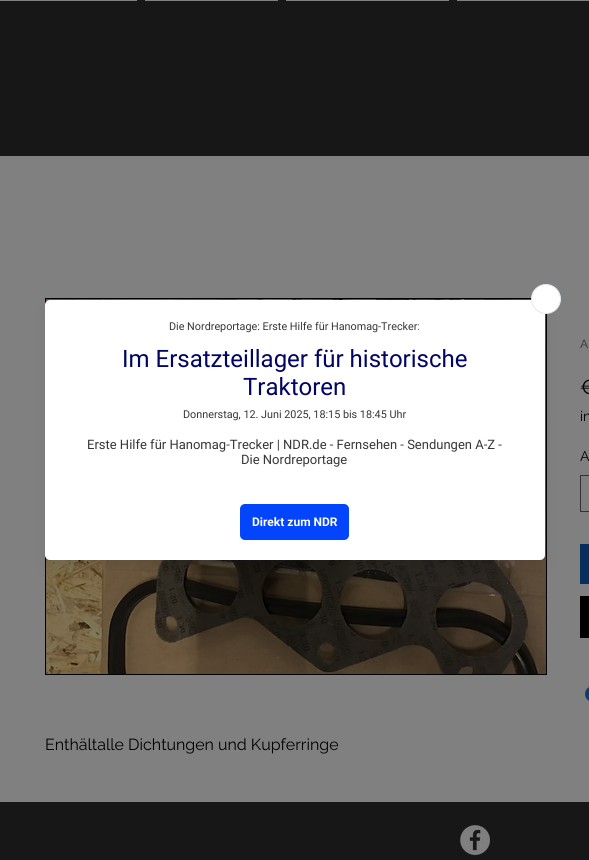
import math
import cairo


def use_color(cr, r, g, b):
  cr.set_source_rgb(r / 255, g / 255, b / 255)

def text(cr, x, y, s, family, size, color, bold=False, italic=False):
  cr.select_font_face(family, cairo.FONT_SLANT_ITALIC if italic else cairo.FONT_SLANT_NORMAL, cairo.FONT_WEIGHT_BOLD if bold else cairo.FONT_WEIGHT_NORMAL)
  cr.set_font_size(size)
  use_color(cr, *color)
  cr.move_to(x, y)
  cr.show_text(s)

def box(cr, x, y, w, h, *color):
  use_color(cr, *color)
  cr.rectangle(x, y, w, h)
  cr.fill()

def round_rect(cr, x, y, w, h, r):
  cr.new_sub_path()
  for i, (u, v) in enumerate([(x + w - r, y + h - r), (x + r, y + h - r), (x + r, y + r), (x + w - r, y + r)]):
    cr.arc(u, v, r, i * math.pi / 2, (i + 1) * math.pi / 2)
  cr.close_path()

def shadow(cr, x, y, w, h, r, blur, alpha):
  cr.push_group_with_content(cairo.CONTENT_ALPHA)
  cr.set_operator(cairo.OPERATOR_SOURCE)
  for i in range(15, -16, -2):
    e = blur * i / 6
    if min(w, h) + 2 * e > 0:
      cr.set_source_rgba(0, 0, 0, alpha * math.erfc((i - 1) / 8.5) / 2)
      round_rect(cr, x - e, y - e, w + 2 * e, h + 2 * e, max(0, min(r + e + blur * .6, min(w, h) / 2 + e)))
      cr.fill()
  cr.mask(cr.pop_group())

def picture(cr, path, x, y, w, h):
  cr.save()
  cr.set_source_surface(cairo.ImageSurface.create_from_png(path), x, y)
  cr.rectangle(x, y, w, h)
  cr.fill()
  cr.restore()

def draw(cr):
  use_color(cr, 24, 23, 23)
  cr.paint()
  box(cr, 0, 156, 589, 646, 128, 128, 128)
  cr.rectangle(45.5, 298.5, 501, 376)
  use_color(cr, 0, 0, 0)
  cr.set_line_width(1)
  cr.stroke()
  picture(cr, "img_02.png", 46, 299, 500, 375)
  use_color(cr, 0, 0, 0)
  shadow(cr, 48, 313, 494, 254, 2, 7.5, 0.1)
  cr.save()
  cr.rectangle(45, 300, 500, 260)
  cr.clip()
  shadow(cr, 48, 303, 494, 254, 2, 10, 0.12)
  cr.restore()
  use_color(cr, 255, 255, 255)
  round_rect(cr, 45, 300, 500, 260, 5)
  cr.fill()
  cr.arc(546, 299, 14.5, 0, 2 * math.pi)
  cr.fill_preserve()
  use_color(cr, 226, 232, 240)
  cr.stroke()
  use_color(cr, 3, 69, 252)
  round_rect(cr, 240, 504, 109, 36, 5)
  cr.fill()
  box(cr, 0, 0, 137, 1, 128, 128, 128)
  box(cr, 145, 0, 133, 1, 128, 128, 128)
  box(cr, 286, 0, 163, 1, 128, 128, 128)
  box(cr, 457, 0, 132, 1, 128, 128, 128)
  cr.rectangle(580.5, 475.5, 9, 36)
  use_color(cr, 51, 51, 51)
  cr.stroke()
  box(cr, 580, 544, 9, 40, 7, 47, 93)
  box(cr, 580, 596, 9, 42, 0, 0, 0)
  picture(cr, "img_01.png", 585, 687, 4, 14)
  picture(cr, "img_03.png", 460, 825, 30, 30)
  text(cr, 169, 330, "Die Nordreportage: Erste Hilfe für Hanomag-Trecker:", "Roboto", 10.8, (54, 54, 54))
  text(cr, 122, 367, "Im Ersatzteillager für historische", "Roboto", 24, (1, 5, 99))
  text(cr, 243, 395, "Traktoren", "Roboto", 24, (1, 5, 99))
  text(cr, 183, 418, "Donnerstag, 12. Juni 2025, 18:15 bis 18:45 Uhr", "Roboto", 10.8, (54, 54, 54))
  text(cr, 87, 449, "Erste Hilfe für Hanomag-Trecker | NDR.de - Fernsehen - Sendungen A-Z -", "Roboto", 13, (54, 54, 54))
  text(cr, 241, 464, "Die Nordreportage", "Roboto", 13, (54, 54, 54))
  text(cr, 252, 526, "Direkt zum NDR", "Roboto", 12, (255, 255, 255), bold=True)
  text(cr, 580, 348, "A", "Raleway", 12, (48, 48, 48))
  text(cr, 580, 394, "€", "Raleway", 20, (0, 0, 0))
  text(cr, 580, 421, "in", "Raleway", 14, (0, 0, 0))
  text(cr, 580, 461, "A", "Raleway", 14, (0, 0, 0))
  text(cr, 45, 750, "Enthältalle Dichtungen und Kupferringe", "Raleway", 16, (0, 0, 0))


surface = cairo.ImageSurface(cairo.FORMAT_RGB24, 589, 860)
cr = cairo.Context(surface)
options = cairo.FontOptions()
options.set_hint_metrics(cairo.HINT_METRICS_OFF)
options.set_hint_style(cairo.HINT_STYLE_NONE)
cr.set_font_options(options)
cr.set_miter_limit(4)
draw(cr)
surface.write_to_png("out.png")
